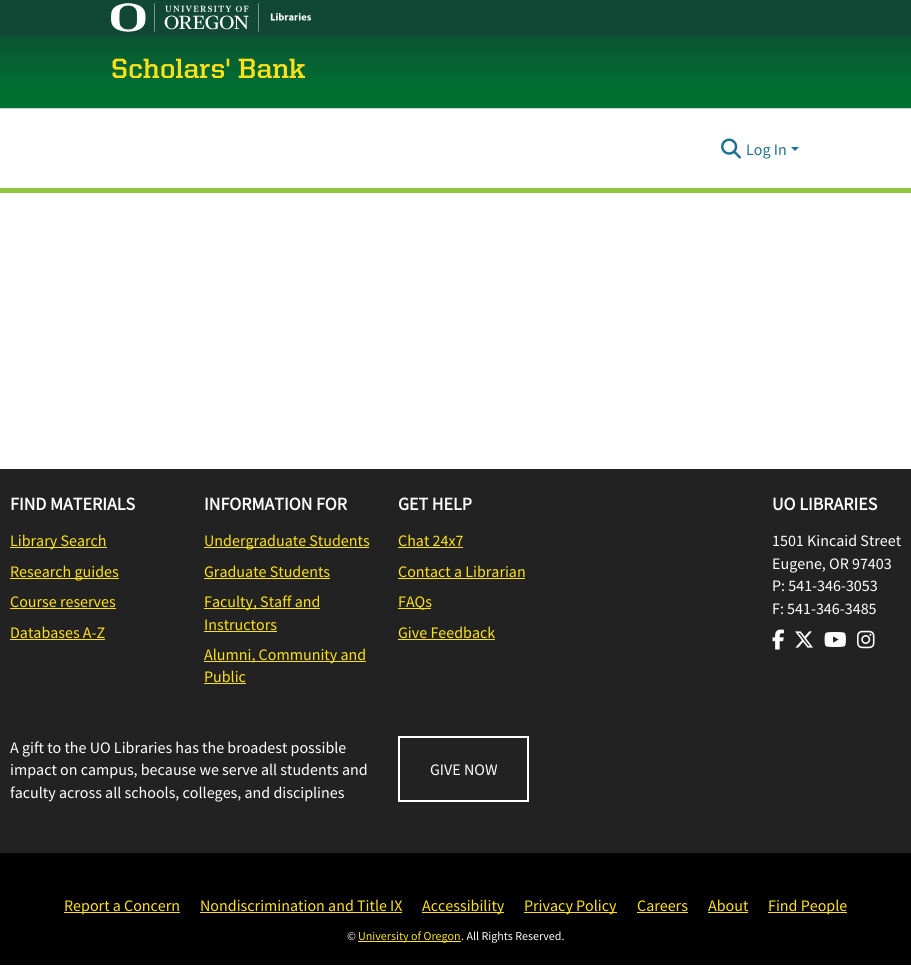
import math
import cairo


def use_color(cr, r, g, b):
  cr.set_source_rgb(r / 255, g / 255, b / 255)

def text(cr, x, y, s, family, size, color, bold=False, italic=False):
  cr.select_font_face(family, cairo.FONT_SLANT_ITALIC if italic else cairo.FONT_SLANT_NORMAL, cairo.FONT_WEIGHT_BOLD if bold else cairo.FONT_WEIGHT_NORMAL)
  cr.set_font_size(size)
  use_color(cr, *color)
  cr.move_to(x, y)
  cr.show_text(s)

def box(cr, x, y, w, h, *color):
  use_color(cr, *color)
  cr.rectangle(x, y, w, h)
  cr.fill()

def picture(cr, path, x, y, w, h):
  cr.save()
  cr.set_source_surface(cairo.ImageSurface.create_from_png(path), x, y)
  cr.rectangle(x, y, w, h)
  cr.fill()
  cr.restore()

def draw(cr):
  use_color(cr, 255, 255, 255)
  cr.paint()
  box(cr, 0, 188, 911, 5, 146, 198, 66)
  box(cr, 0, 0, 911, 36, 16, 71, 53)
  picture(cr, "img_01.png", 111, 3, 200, 29)
  gradient = cairo.LinearGradient(456, 108, 456, 11)
  gradient.add_color_stop_rgba(0.19, 0, 0.439, 0.188, 1)
  gradient.add_color_stop_rgba(1, 0.063, 0.278, 0.208, 1)
  cr.set_source(gradient)
  cr.rectangle(0, 36, 911, 72)
  cr.fill()
  box(cr, 0, 108, 911, 1, 206, 212, 218)
  picture(cr, "img_02.png", 721, 138, 20, 21)
  use_color(cr, 31, 114, 147)
  cr.new_path()
  cr.move_to(791, 147)
  cr.line_to(799, 147)
  cr.line_to(795, 151)
  cr.close_path()
  cr.fill()
  box(cr, 0, 469, 911, 384, 34, 34, 34)
  box(cr, 10, 547, 97, 1, 254, 225, 26)
  box(cr, 10, 578, 109, 1, 254, 225, 26)
  box(cr, 10, 608, 106, 1, 254, 225, 26)
  box(cr, 10, 639, 95, 1, 254, 225, 26)
  box(cr, 204, 547, 165, 1, 254, 225, 26)
  box(cr, 204, 578, 126, 1, 254, 225, 26)
  box(cr, 204, 608, 116, 1, 254, 225, 26)
  box(cr, 204, 631, 73, 1, 254, 225, 26)
  box(cr, 204, 661, 162, 1, 254, 225, 26)
  box(cr, 204, 683, 42, 1, 254, 225, 26)
  box(cr, 398, 547, 65, 1, 254, 225, 26)
  box(cr, 398, 578, 127, 1, 254, 225, 26)
  box(cr, 398, 608, 33, 1, 254, 225, 26)
  box(cr, 398, 639, 97, 1, 254, 225, 26)
  cr.rectangle(399, 737, 129, 64)
  use_color(cr, 255, 255, 255)
  cr.stroke()
  picture(cr, "img_03.png", 772, 629, 12, 21)
  picture(cr, "img_04.png", 795, 631, 18, 17)
  picture(cr, "img_05.png", 824, 632, 22, 15)
  picture(cr, "img_06.png", 857, 630, 18, 19)
  box(cr, 0, 853, 911, 112, 0, 0, 0)
  box(cr, 64, 912, 116, 1, 254, 225, 26)
  box(cr, 200, 912, 202, 1, 254, 225, 26)
  box(cr, 422, 912, 82, 1, 254, 225, 26)
  box(cr, 524, 912, 93, 1, 254, 225, 26)
  box(cr, 637, 912, 51, 1, 254, 225, 26)
  box(cr, 708, 912, 40, 1, 254, 225, 26)
  box(cr, 768, 912, 79, 1, 254, 225, 26)
  box(cr, 358, 941, 103, 1, 254, 225, 26)
  text(cr, 111, 78, "Scholars' Bank", "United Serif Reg", 28, (254, 225, 26), bold=True)
  text(cr, 746, 155, "Log In", "Source Sans Pro", 16, (31, 114, 147))
  text(cr, 10, 510, "FIND MATERIALS", "Source Sans Pro", 18, (255, 255, 255), bold=True)
  text(cr, 10, 546, "Library Search", "Source Sans Pro", 16, (254, 225, 26))
  text(cr, 10, 577, "Research guides", "Source Sans Pro", 16, (254, 225, 26))
  text(cr, 10, 607, "Course reserves", "Source Sans Pro", 16, (254, 225, 26))
  text(cr, 10, 638, "Databases A-Z", "Source Sans Pro", 16, (254, 225, 26))
  text(cr, 204, 510, "INFORMATION FOR", "Source Sans Pro", 18, (255, 255, 255), bold=True)
  text(cr, 204, 546, "Undergraduate Students", "Source Sans Pro", 16, (254, 225, 26))
  text(cr, 204, 577, "Graduate Students", "Source Sans Pro", 16, (254, 225, 26))
  text(cr, 204, 607, "Faculty, Staff and", "Source Sans Pro", 16, (254, 225, 26))
  text(cr, 204, 630, "Instructors", "Source Sans Pro", 16, (254, 225, 26))
  text(cr, 204, 660, "Alumni, Community and", "Source Sans Pro", 16, (254, 225, 26))
  text(cr, 204, 682, "Public", "Source Sans Pro", 16, (254, 225, 26))
  text(cr, 398, 510, "GET HELP", "Source Sans Pro", 18, (255, 255, 255), bold=True)
  text(cr, 398, 546, "Chat 24x7", "Source Sans Pro", 16, (254, 225, 26))
  text(cr, 398, 577, "Contact a Librarian", "Source Sans Pro", 16, (254, 225, 26))
  text(cr, 398, 607, "FAQs", "Source Sans Pro", 16, (254, 225, 26))
  text(cr, 398, 638, "Give Feedback", "Source Sans Pro", 16, (254, 225, 26))
  text(cr, 10, 753, "A gift to the UO Libraries has the broadest possible", "Source Sans Pro", 16, (255, 255, 255))
  text(cr, 10, 775, "impact on campus, because we serve all students and", "Source Sans Pro", 16, (255, 255, 255))
  text(cr, 10, 798, "faculty across all schools, colleges, and disciplines", "Source Sans Pro", 16, (255, 255, 255))
  text(cr, 430, 775, "GIVE NOW", "Source Sans Pro", 16, (255, 255, 255))
  text(cr, 772, 510, "UO LIBRARIES", "Source Sans Pro", 18, (255, 255, 255), bold=True)
  text(cr, 772, 546, "1501 Kincaid Street", "Source Sans Pro", 16, (255, 255, 255))
  text(cr, 772, 569, "Eugene, OR 97403", "Source Sans Pro", 16, (255, 255, 255))
  text(cr, 772, 591, "P: 541-346-3053", "Source Sans Pro", 16, (255, 255, 255))
  text(cr, 772, 614, "F: 541-346-3485", "Source Sans Pro", 16, (255, 255, 255))
  text(cr, 64, 911, "Report a Concern", "Source Sans Pro", 16, (254, 225, 26))
  text(cr, 200, 911, "Nondiscrimination and Title IX", "Source Sans Pro", 16, (254, 225, 26))
  text(cr, 422, 911, "Accessibility", "Source Sans Pro", 16, (254, 225, 26))
  text(cr, 524, 911, "Privacy Policy", "Source Sans Pro", 16, (254, 225, 26))
  text(cr, 637, 911, "Careers", "Source Sans Pro", 16, (254, 225, 26))
  text(cr, 708, 911, "About", "Source Sans Pro", 16, (254, 225, 26))
  text(cr, 768, 911, "Find People", "Source Sans Pro", 16, (254, 225, 26))
  text(cr, 347, 940, "©", "Source Sans Pro", 12, (255, 255, 255))
  text(cr, 358, 940, "University of Oregon", "Source Sans Pro", 12, (254, 225, 26))
  text(cr, 461, 940, ". All Rights Reserved.", "Source Sans Pro", 12, (255, 255, 255))


surface = cairo.ImageSurface(cairo.FORMAT_RGB24, 911, 966)
cr = cairo.Context(surface)
options = cairo.FontOptions()
options.set_hint_metrics(cairo.HINT_METRICS_OFF)
options.set_hint_style(cairo.HINT_STYLE_NONE)
cr.set_font_options(options)
cr.set_miter_limit(4)
draw(cr)
surface.write_to_png("out.png")
